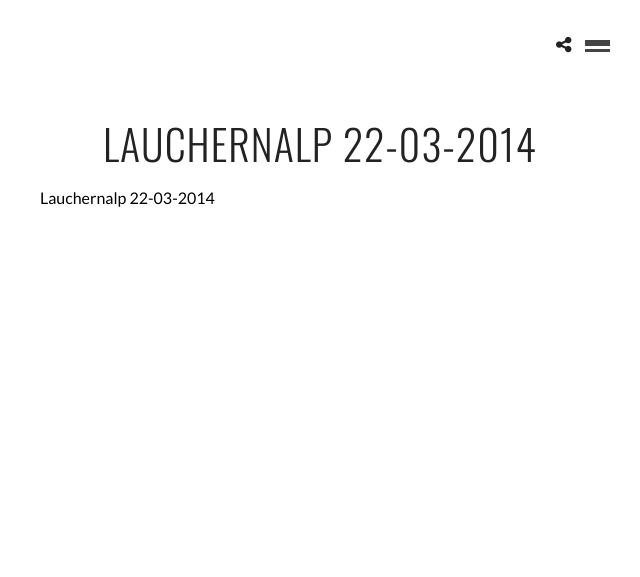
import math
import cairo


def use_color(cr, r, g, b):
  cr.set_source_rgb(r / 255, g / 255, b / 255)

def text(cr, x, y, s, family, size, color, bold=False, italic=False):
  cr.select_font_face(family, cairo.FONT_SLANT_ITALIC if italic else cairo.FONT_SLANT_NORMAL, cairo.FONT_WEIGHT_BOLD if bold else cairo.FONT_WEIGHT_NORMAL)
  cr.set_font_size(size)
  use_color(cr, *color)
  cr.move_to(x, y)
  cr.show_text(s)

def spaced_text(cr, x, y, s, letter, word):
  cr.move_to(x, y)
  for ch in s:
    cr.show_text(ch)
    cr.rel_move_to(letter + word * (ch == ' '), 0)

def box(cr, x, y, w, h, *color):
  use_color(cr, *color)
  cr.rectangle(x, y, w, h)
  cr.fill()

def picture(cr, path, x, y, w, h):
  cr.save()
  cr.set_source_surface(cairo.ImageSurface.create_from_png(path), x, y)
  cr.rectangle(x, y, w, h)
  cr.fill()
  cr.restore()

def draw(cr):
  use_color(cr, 255, 255, 255)
  cr.paint()
  picture(cr, "img_01.png", 556, 36, 16, 17)
  box(cr, 585, 40, 25, 6, 68, 68, 68)
  box(cr, 585, 49, 25, 3, 68, 68, 68)
  cr.select_font_face("Oswald Light")
  cr.set_font_size(42)
  use_color(cr, 34, 34, 34)
  spaced_text(cr, 103, 162, "LAUCHERNALP 22-03-2014", 1, 0)
  text(cr, 40, 204, "Lauchernalp 22-03-2014", "Lato", 16, (0, 0, 0))


surface = cairo.ImageSurface(cairo.FORMAT_RGB24, 640, 577)
cr = cairo.Context(surface)
options = cairo.FontOptions()
options.set_hint_metrics(cairo.HINT_METRICS_OFF)
options.set_hint_style(cairo.HINT_STYLE_NONE)
cr.set_font_options(options)
cr.set_miter_limit(4)
draw(cr)
surface.write_to_png("out.png")
